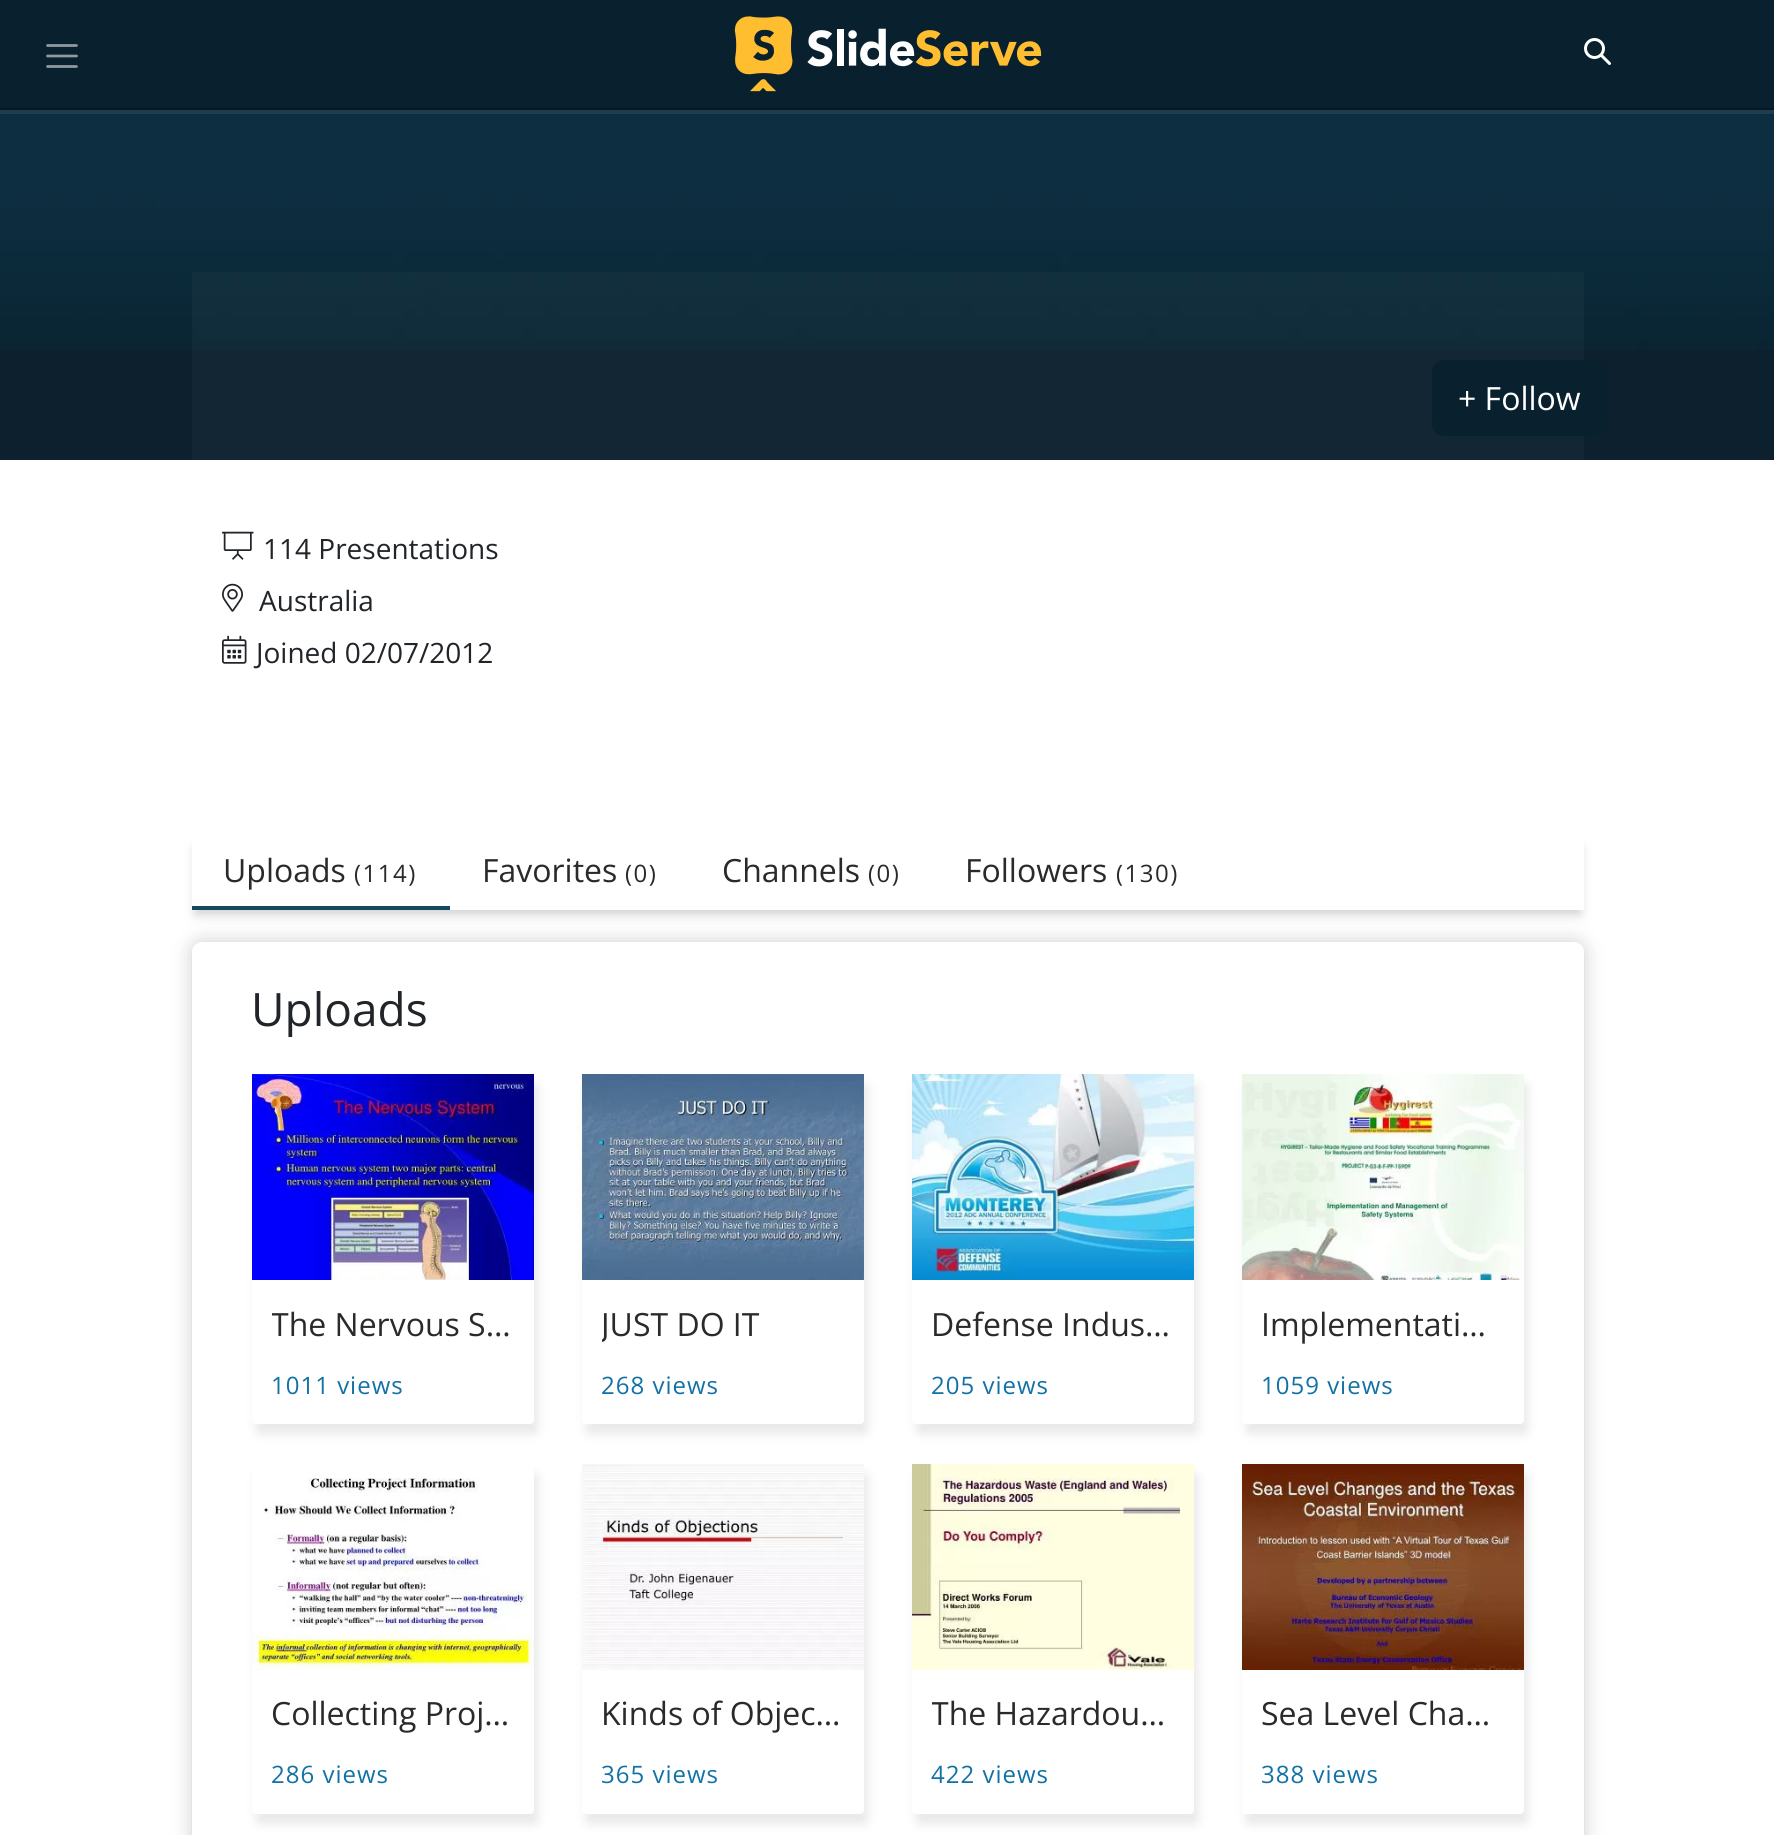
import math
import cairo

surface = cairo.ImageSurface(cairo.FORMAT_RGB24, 1774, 1835)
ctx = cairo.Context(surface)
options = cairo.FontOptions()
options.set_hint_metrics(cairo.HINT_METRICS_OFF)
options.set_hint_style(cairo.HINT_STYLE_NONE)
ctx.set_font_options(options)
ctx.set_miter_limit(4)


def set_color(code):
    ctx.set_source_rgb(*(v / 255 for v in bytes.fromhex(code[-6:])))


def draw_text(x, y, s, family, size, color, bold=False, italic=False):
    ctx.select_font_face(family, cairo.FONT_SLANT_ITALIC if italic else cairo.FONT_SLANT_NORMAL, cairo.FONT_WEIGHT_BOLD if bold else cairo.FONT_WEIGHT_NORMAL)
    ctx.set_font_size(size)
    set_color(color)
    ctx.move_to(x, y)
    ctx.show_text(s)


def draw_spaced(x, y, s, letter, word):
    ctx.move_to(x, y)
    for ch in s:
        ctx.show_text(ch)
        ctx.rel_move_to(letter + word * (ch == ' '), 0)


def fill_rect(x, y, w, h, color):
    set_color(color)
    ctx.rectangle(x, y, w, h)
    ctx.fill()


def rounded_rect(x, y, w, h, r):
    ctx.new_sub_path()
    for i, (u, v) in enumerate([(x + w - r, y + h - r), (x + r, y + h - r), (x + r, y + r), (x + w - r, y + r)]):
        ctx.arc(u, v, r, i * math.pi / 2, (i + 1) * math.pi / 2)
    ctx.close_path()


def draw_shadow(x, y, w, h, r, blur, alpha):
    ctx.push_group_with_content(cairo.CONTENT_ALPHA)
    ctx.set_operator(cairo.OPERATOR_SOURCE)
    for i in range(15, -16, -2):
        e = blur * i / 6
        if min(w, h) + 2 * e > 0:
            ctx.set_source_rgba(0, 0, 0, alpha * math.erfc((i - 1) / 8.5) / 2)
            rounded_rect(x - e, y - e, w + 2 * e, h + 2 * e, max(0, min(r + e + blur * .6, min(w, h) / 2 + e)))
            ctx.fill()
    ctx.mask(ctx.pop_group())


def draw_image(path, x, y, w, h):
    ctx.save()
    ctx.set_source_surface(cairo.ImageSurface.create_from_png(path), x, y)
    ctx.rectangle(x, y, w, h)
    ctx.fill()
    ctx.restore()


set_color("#ffffff")
ctx.paint()
fill_rect(0, 110, 1774, 4, "#1e3d4e")
fill_rect(0, 0, 1774, 108, "#09212e")
fill_rect(0, 108, 1774, 2, "#061924")
ctx.new_path()
ctx.move_to(47.5, 45.5)
ctx.line_to(76.5, 45.5)
ctx.move_to(47.5, 56)
ctx.line_to(76.5, 56)
ctx.move_to(47.5, 66.5)
ctx.line_to(76.5, 66.5)
set_color("#909ba1")
ctx.set_line_width(2.7)
ctx.set_line_cap(cairo.LINE_CAP_ROUND)
ctx.stroke()
draw_image("assets/img1.png", 734, 16, 308, 76)
ctx.arc(1594.5, 48.5, 9, 0, 2 * math.pi)
set_color("#ffffff")
ctx.set_line_width(3)
ctx.set_line_cap(cairo.LINE_CAP_BUTT)
ctx.stroke()
ctx.new_path()
ctx.move_to(1609.5, 63.5)
ctx.line_to(1601.5, 55.5)
ctx.set_line_cap(cairo.LINE_CAP_ROUND)
ctx.set_line_join(cairo.LINE_JOIN_ROUND)
ctx.stroke()
fill_rect(0, 350, 1774, 110, "#0c202e")
draw_image("assets/img2.png", 0, 114, 1774, 236)
ctx.set_source_rgba(1, 1, 1, 0.03)
ctx.rectangle(192, 272, 1392, 188)
ctx.fill()
set_color("#09212e")
rounded_rect(1432, 360, 176, 76, 12)
ctx.fill()
draw_text(1458, 410, "+ Follow", "Open Sans", 32, "#ffffff")
draw_image("assets/img3.png", 222, 531, 32, 29)
draw_text(263, 559, "114 Presentations", "Open Sans", 28, "#212529")
draw_image("assets/img4.png", 222, 583, 21, 29)
draw_text(259, 611, "Australia", "Open Sans", 28, "#212529")
draw_image("assets/img5.png", 222, 635, 25, 29)
draw_text(256, 663, "Joined 02/07/2012", "Open Sans", 28, "#212529")
ctx.save()
ctx.set_fill_rule(cairo.FILL_RULE_EVEN_ODD)
ctx.new_path()
ctx.move_to(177, 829)
ctx.line_to(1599, 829)
ctx.line_to(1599, 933)
ctx.line_to(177, 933)
ctx.close_path()
ctx.move_to(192, 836)
ctx.line_to(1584, 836)
ctx.line_to(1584, 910)
ctx.line_to(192, 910)
ctx.close_path()
ctx.clip()
set_color("#000000")
draw_shadow(196, 848, 1384, 66, 0, 6, 0.2)
ctx.restore()
fill_rect(192, 906, 258, 4, "#15495f")
draw_text(223, 882, "Uploads", "Open Sans", 32, "#2b2a2a")
ctx.set_font_size(24)
draw_spaced(354, 882, "(114)", 1.5, 0)
draw_text(482, 882, "Favorites", "Open Sans", 32, "#2b2a2a")
ctx.set_font_size(24)
draw_spaced(625, 882, "(0)", 1.5, 0)
draw_text(722, 882, "Channels", "Open Sans", 32, "#2b2a2a")
ctx.set_font_size(24)
draw_spaced(868, 882, "(0)", 1.5, 0)
draw_text(965, 882, "Followers", "Open Sans", 32, "#2b2a2a")
ctx.set_font_size(24)
draw_spaced(1116, 882, "(130)", 1.5, 0)
set_color("#000000")
draw_shadow(192, 942, 1392, 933, 10, 10, 0.2)
set_color("#ffffff")
rounded_rect(192, 942, 1392, 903, 10)
ctx.fill()
draw_text(251, 1026, "Uploads", "Open Sans", 46, "#212529")
set_color("#c7c7c7")
draw_shadow(256, 1084, 282, 350, 4, 5, 0.4)
set_color("#ffffff")
rounded_rect(252, 1074, 282, 350, 4)
ctx.fill()
draw_image("assets/img6.png", 252, 1074, 282, 206)
ctx.save()
ctx.rectangle(272, 1300, 242, 48)
ctx.clip()
draw_text(271, 1336, "The Nervous S…", "Open Sans", 32, "#2b2a2a")
ctx.restore()
ctx.set_font_size(24)
set_color("#1271a5")
draw_spaced(271, 1394, "1011 views", 1, 0)
set_color("#c7c7c7")
draw_shadow(586, 1084, 282, 350, 4, 5, 0.4)
set_color("#ffffff")
rounded_rect(582, 1074, 282, 350, 4)
ctx.fill()
draw_image("assets/img7.png", 582, 1074, 282, 206)
ctx.save()
ctx.rectangle(602, 1300, 242, 48)
ctx.clip()
draw_text(601, 1336, "JUST DO IT", "Open Sans", 32, "#2b2a2a")
ctx.restore()
set_color("#1271a5")
draw_spaced(601, 1394, "268 views", 1, 0)
set_color("#c7c7c7")
draw_shadow(916, 1084, 282, 350, 4, 5, 0.4)
set_color("#ffffff")
rounded_rect(912, 1074, 282, 350, 4)
ctx.fill()
draw_image("assets/img8.png", 912, 1074, 282, 206)
draw_text(931, 1336, "Defense Indus…", "Open Sans", 32, "#2b2a2a")
ctx.set_font_size(24)
set_color("#1271a5")
draw_spaced(931, 1394, "205 views", 1, 0)
set_color("#c7c7c7")
draw_shadow(1246, 1084, 282, 350, 4, 5, 0.4)
set_color("#ffffff")
rounded_rect(1242, 1074, 282, 350, 4)
ctx.fill()
draw_image("assets/img9.png", 1242, 1074, 282, 206)
draw_text(1261, 1336, "Implementati…", "Open Sans", 32, "#2b2a2a")
ctx.set_font_size(24)
set_color("#1271a5")
draw_spaced(1261, 1394, "1059 views", 1, 0)
set_color("#c7c7c7")
draw_shadow(256, 1474, 282, 350, 4, 5, 0.4)
set_color("#ffffff")
rounded_rect(252, 1464, 282, 350, 4)
ctx.fill()
draw_image("assets/img10.png", 252, 1478, 282, 192)
draw_text(271, 1725, "Collecting Proj…", "Open Sans", 32, "#2b2a2a")
ctx.set_font_size(24)
set_color("#1271a5")
draw_spaced(271, 1783, "286 views", 1, 0)
set_color("#c7c7c7")
draw_shadow(586, 1474, 282, 350, 4, 5, 0.4)
set_color("#ffffff")
rounded_rect(582, 1464, 282, 350, 4)
ctx.fill()
draw_image("assets/img11.png", 582, 1464, 282, 206)
draw_text(601, 1725, "Kinds of Objec…", "Open Sans", 32, "#2b2a2a")
ctx.set_font_size(24)
set_color("#1271a5")
draw_spaced(601, 1783, "365 views", 1, 0)
set_color("#c7c7c7")
draw_shadow(916, 1474, 282, 350, 4, 5, 0.4)
set_color("#ffffff")
rounded_rect(912, 1464, 282, 350, 4)
ctx.fill()
draw_image("assets/img12.png", 912, 1464, 282, 206)
ctx.save()
ctx.rectangle(932, 1690, 242, 48)
ctx.clip()
draw_text(931, 1725, "The Hazardou…", "Open Sans", 32, "#2b2a2a")
ctx.restore()
set_color("#1271a5")
draw_spaced(931, 1783, "422 views", 1, 0)
set_color("#c7c7c7")
draw_shadow(1246, 1474, 282, 350, 4, 5, 0.4)
set_color("#ffffff")
rounded_rect(1242, 1464, 282, 350, 4)
ctx.fill()
draw_image("assets/img13.png", 1242, 1464, 282, 206)
draw_text(1261, 1725, "Sea Level Cha…", "Open Sans", 32, "#2b2a2a")
ctx.set_font_size(24)
set_color("#1271a5")
draw_spaced(1261, 1783, "388 views", 1, 0)
surface.write_to_png("output.png")
